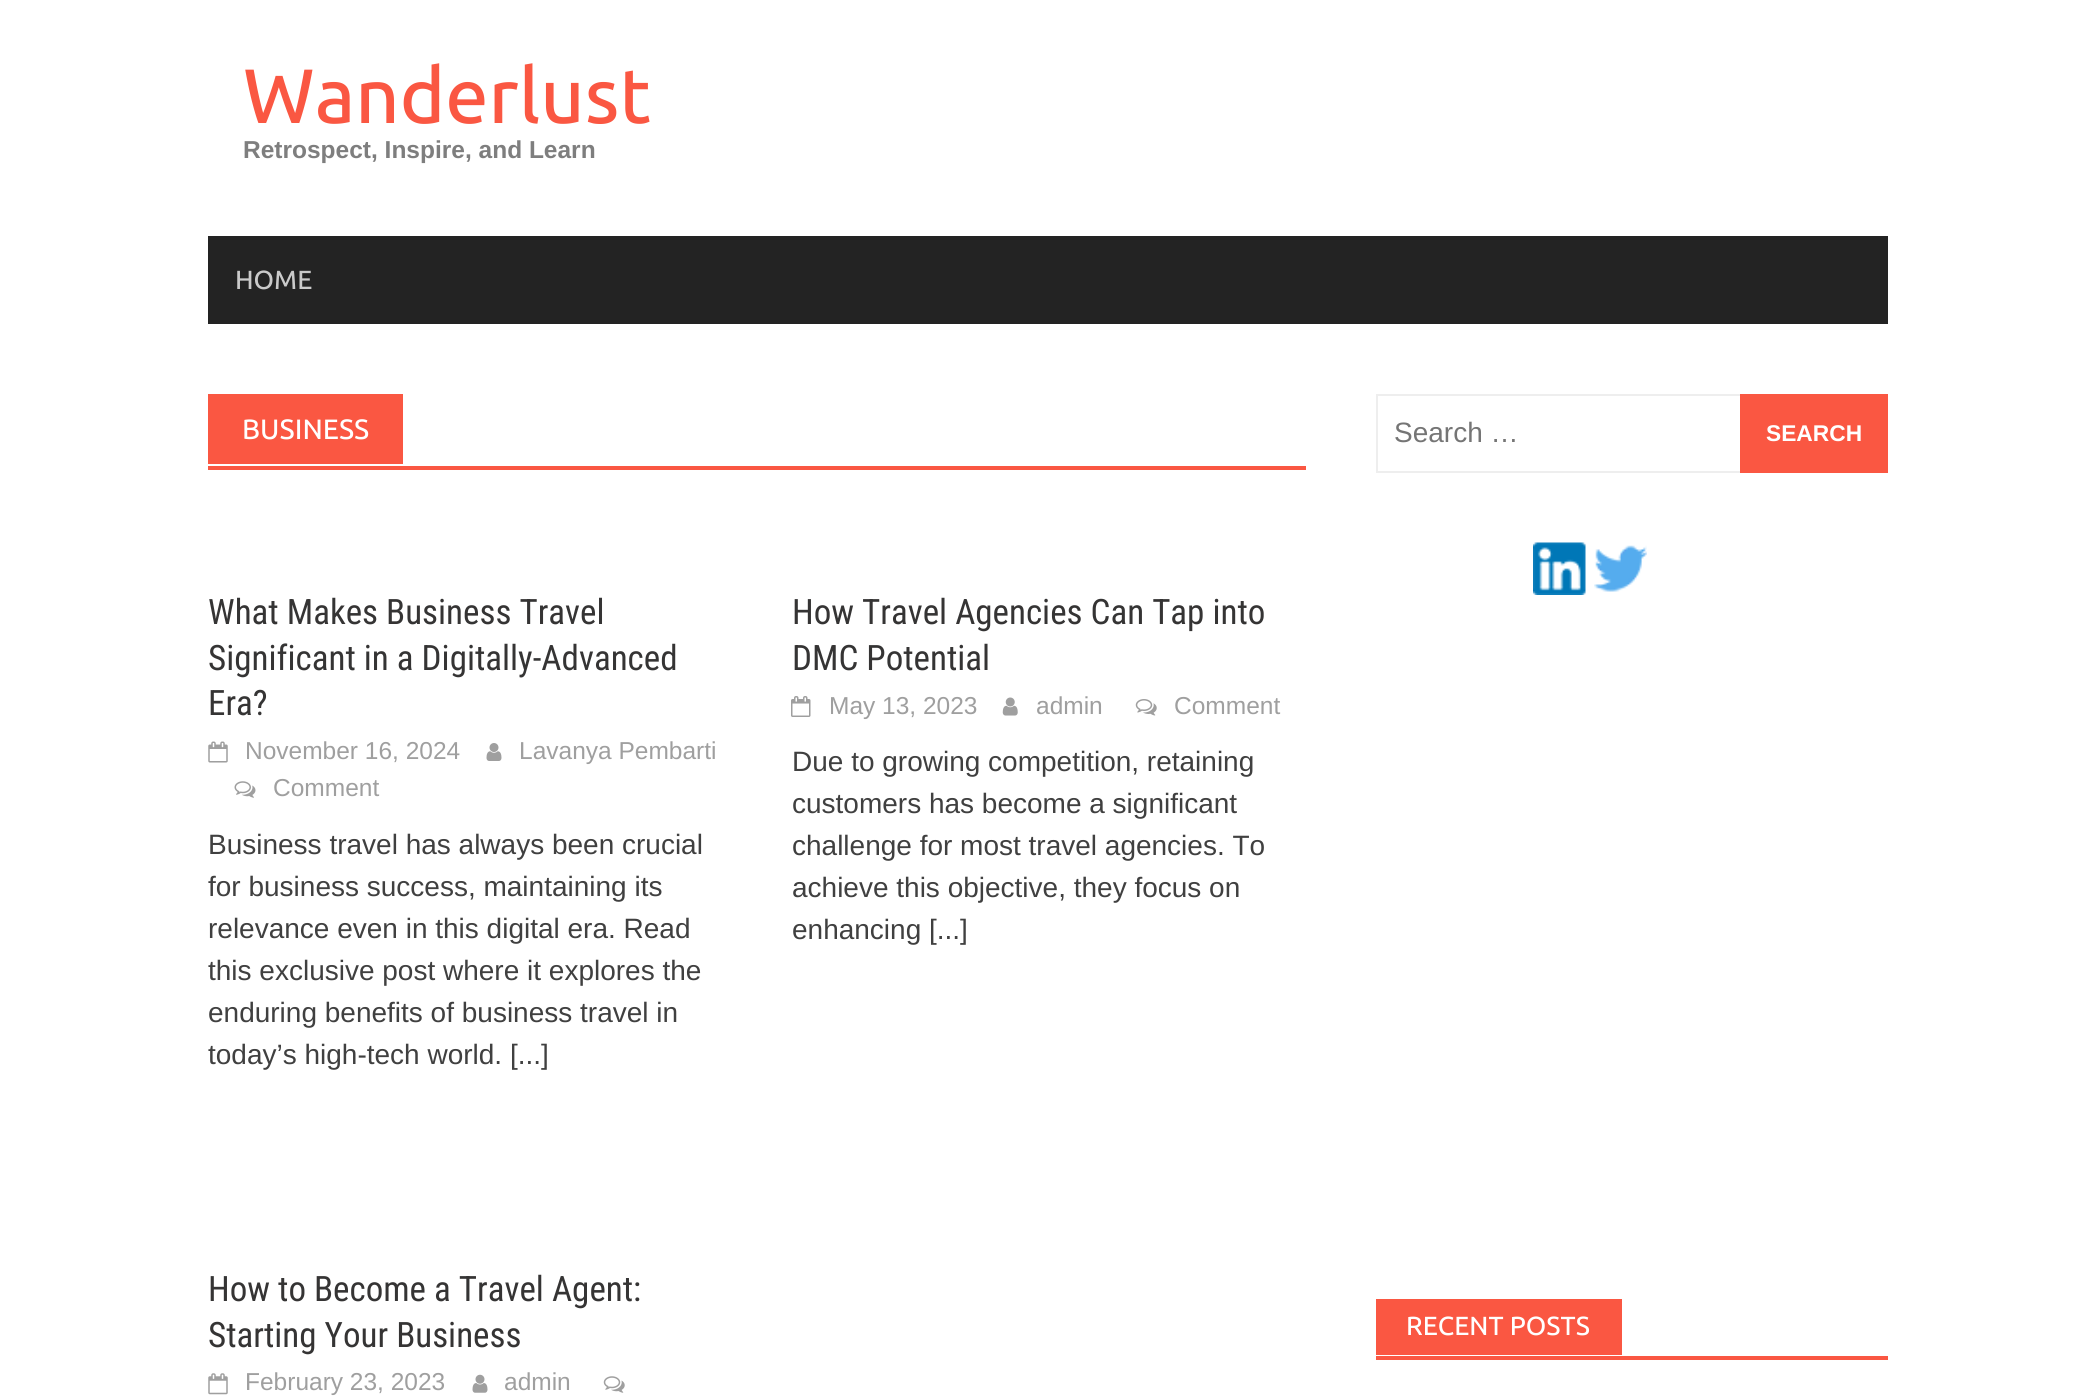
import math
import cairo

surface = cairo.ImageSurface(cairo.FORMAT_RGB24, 2095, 1399)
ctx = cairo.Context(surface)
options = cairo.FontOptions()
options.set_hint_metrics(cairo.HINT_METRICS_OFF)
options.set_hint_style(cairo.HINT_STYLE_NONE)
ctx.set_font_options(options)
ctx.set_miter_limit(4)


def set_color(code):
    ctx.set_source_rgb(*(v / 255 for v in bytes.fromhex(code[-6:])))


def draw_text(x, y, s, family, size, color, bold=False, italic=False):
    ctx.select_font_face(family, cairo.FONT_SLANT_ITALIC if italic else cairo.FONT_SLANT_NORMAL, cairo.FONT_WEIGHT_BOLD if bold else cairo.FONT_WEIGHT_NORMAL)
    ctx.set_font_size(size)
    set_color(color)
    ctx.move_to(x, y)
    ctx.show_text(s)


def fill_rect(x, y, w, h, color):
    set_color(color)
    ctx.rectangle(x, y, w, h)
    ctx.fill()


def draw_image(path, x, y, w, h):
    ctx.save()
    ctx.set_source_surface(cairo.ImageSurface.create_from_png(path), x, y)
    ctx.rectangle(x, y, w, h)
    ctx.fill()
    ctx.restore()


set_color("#ffffff")
ctx.paint()
draw_text(243, 123, "Wanderlust", "Ubuntu Medium", 77, "#fa5742")
draw_text(243, 158, "Retrospect, Inspire, and Learn", "Liberation Sans", 24.5, "#7e7e7e", bold=True)
fill_rect(208, 236, 1680, 88, "#232323")
draw_text(235, 289, "HOME", "Ubuntu Medium", 26.25, "#cacaca")
fill_rect(208, 466, 1098, 4, "#fa5742")
fill_rect(208, 394, 195, 70, "#fa5742")
draw_text(242, 439, "BUSINESS", "Ubuntu Medium", 28, "#ffffff")
draw_text(208, 624, "What Makes Business Travel", "Roboto Condensed", 35, "#353434")
draw_text(208, 670, "Significant in a Digitally-Advanced", "Roboto Condensed", 35, "#353434")
draw_text(208, 715, "Era?", "Roboto Condensed", 35, "#353434")
draw_image("assets/img1.png", 208, 741, 20, 22)
draw_text(245, 759, "November 16, 2024", "Liberation Sans", 24.5, "#9f9f9f")
draw_image("assets/img2.png", 486, 743, 16, 18)
draw_text(519, 759, "Lavanya Pembarti", "Liberation Sans", 24.5, "#9f9f9f")
draw_image("assets/img3.png", 234, 781, 22, 17)
draw_text(273, 796, "Comment", "Liberation Sans", 24.5, "#9f9f9f")
draw_text(208, 854, "Business travel has always been crucial", "Liberation Sans", 28, "#404040")
draw_text(208, 896, "for business success, maintaining its", "Liberation Sans", 28, "#404040")
draw_text(208, 938, "relevance even in this digital era. Read", "Liberation Sans", 28, "#404040")
draw_text(208, 980, "this exclusive post where it explores the", "Liberation Sans", 28, "#404040")
draw_text(208, 1022, "enduring benefits of business travel in", "Liberation Sans", 28, "#404040")
draw_text(208, 1064, "today’s high-tech world. [...]", "Liberation Sans", 28, "#404040")
draw_text(792, 624, "How Travel Agencies Can Tap into", "Roboto Condensed", 35, "#353434")
draw_text(792, 670, "DMC Potential", "Roboto Condensed", 35, "#353434")
draw_image("assets/img4.png", 791, 696, 20, 21)
draw_text(829, 714, "May 13, 2023", "Liberation Sans", 24.5, "#9f9f9f")
draw_image("assets/img5.png", 1002, 697, 16, 19)
draw_text(1036, 714, "admin", "Liberation Sans", 24.5, "#9f9f9f")
draw_image("assets/img6.png", 1135, 699, 22, 17)
draw_text(1174, 714, "Comment", "Liberation Sans", 24.5, "#9f9f9f")
draw_text(792, 771, "Due to growing competition, retaining", "Liberation Sans", 28, "#404040")
draw_text(792, 813, "customers has become a significant", "Liberation Sans", 28, "#404040")
draw_text(792, 855, "challenge for most travel agencies. To", "Liberation Sans", 28, "#404040")
draw_text(792, 897, "achieve this objective, they focus on", "Liberation Sans", 28, "#404040")
draw_text(792, 939, "enhancing [...]", "Liberation Sans", 28, "#404040")
draw_text(208, 1301, "How to Become a Travel Agent:", "Roboto Condensed", 35, "#353434")
draw_text(208, 1347, "Starting Your Business", "Roboto Condensed", 35, "#353434")
draw_image("assets/img7.png", 208, 1373, 20, 22)
draw_text(245, 1390, "February 23, 2023", "Liberation Sans", 24.5, "#9f9f9f")
draw_image("assets/img8.png", 472, 1374, 16, 19)
draw_text(504, 1390, "admin", "Liberation Sans", 24.5, "#9f9f9f")
draw_image("assets/img9.png", 603, 1376, 22, 17)
ctx.rectangle(1377, 395, 510, 77)
set_color("#eeeeee")
ctx.stroke()
draw_text(1394, 442, "Search …", "Liberation Sans", 28, "#757575")
fill_rect(1740, 394, 148, 79, "#fa5742")
draw_text(1766, 441, "SEARCH", "Liberation Sans", 22.75, "#ffffff", bold=True)
draw_image("assets/img10.png", 1533, 542, 53, 53)
draw_image("assets/img11.png", 1594, 545, 53, 47)
fill_rect(1376, 1356, 512, 4, "#fa5742")
fill_rect(1376, 1299, 246, 56, "#fa5742")
draw_text(1406, 1335, "RECENT POSTS", "Ubuntu Medium", 26.25, "#ffffff")
surface.write_to_png("output.png")
